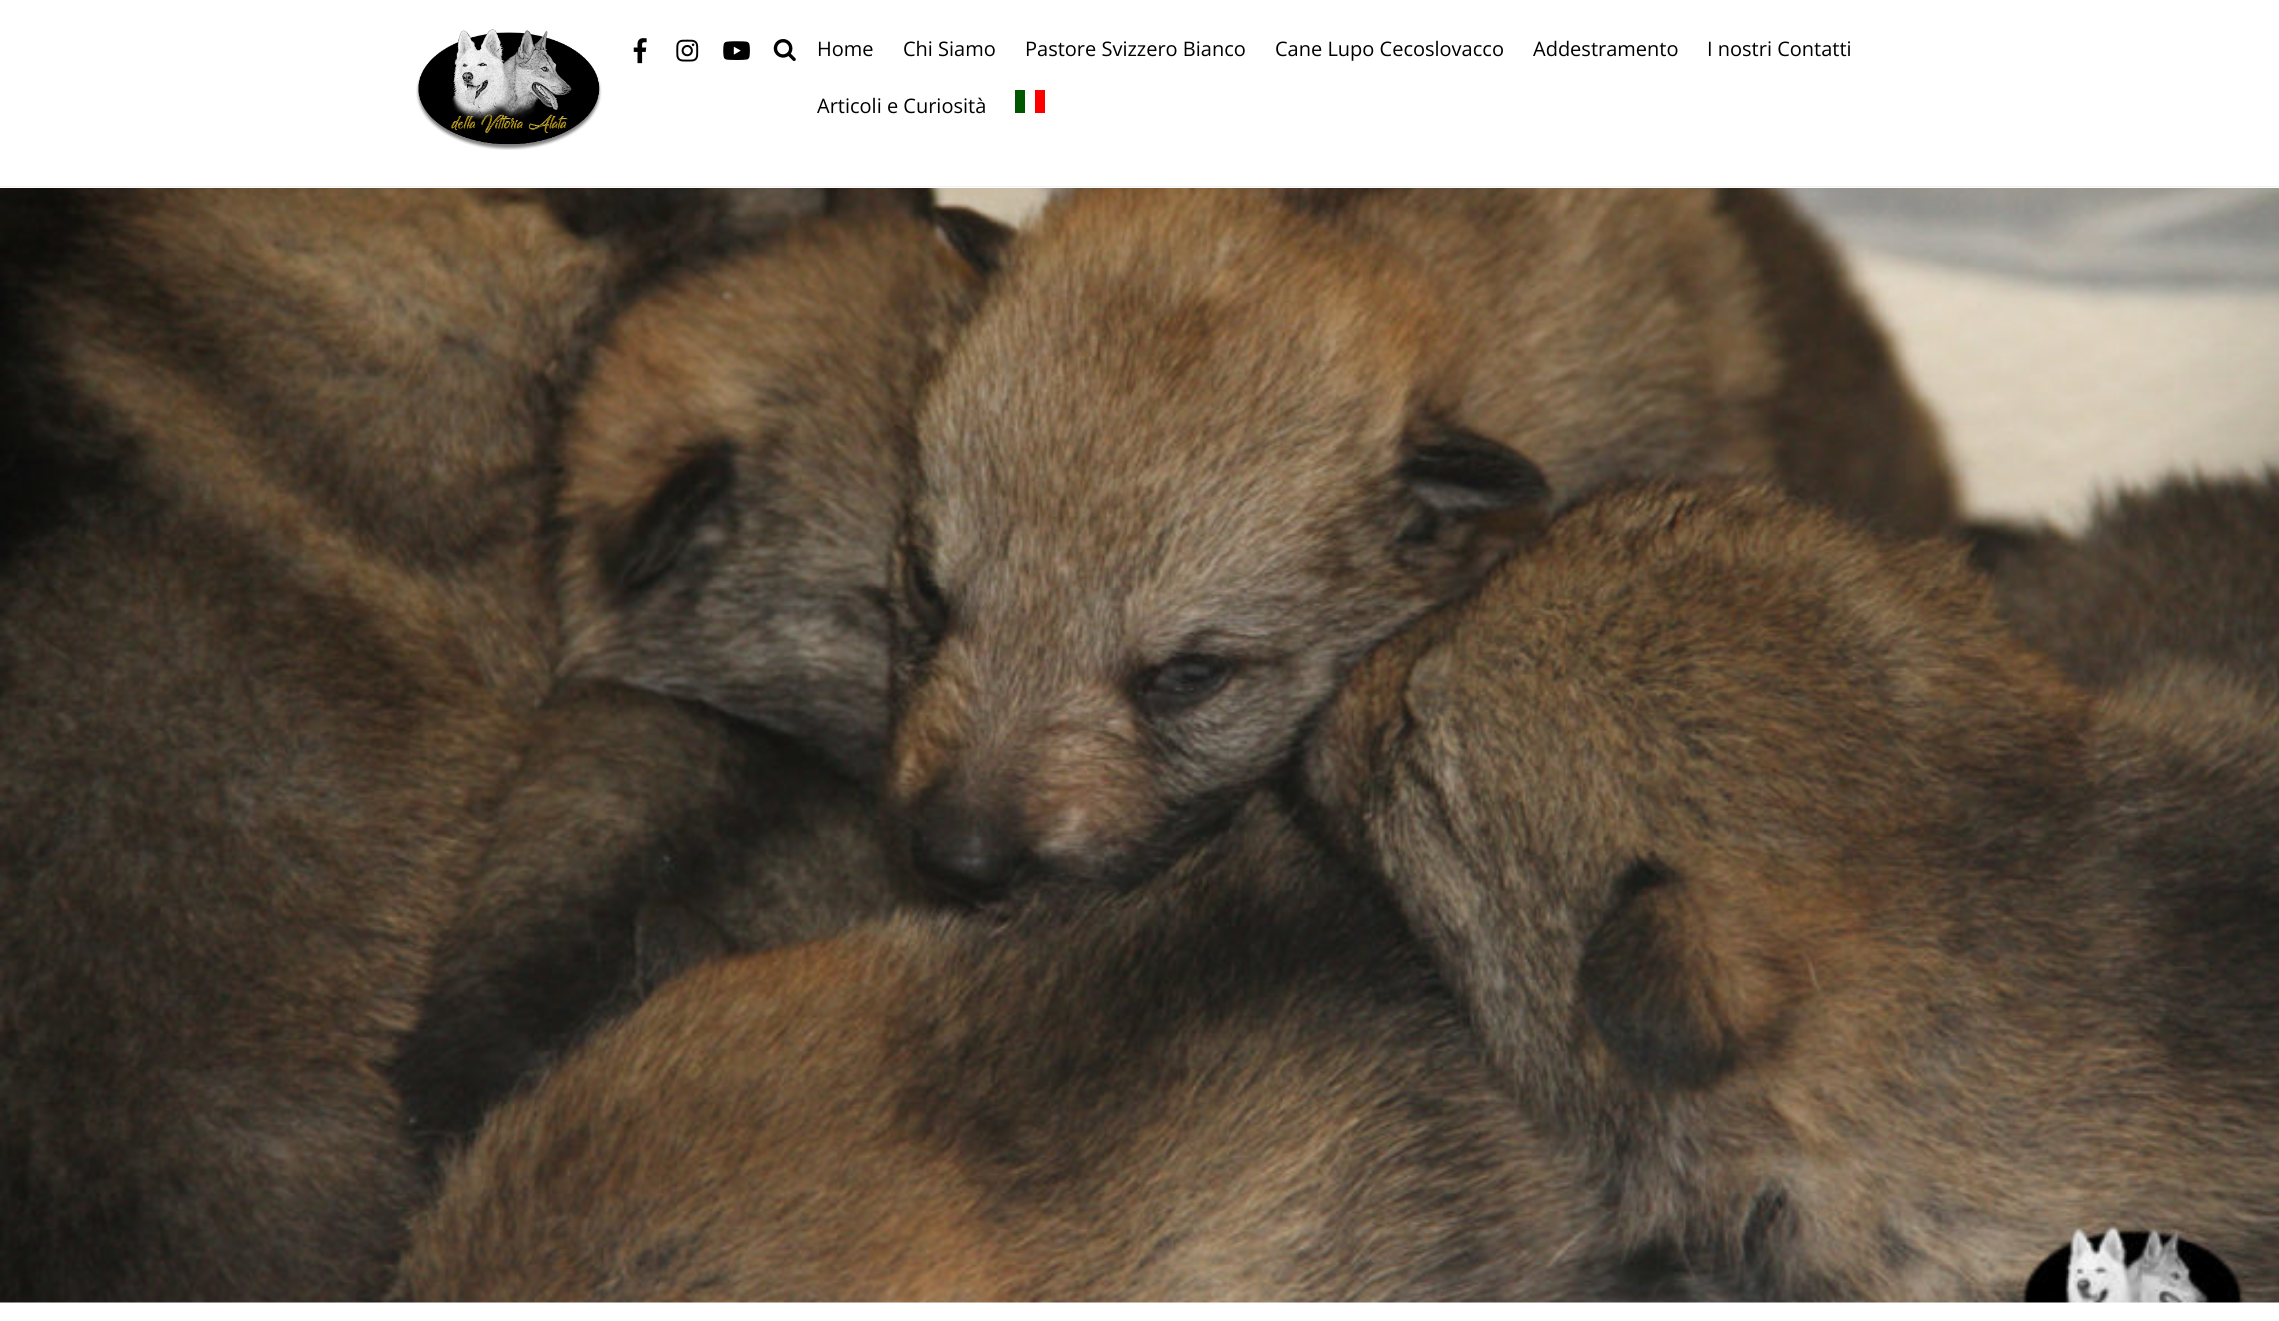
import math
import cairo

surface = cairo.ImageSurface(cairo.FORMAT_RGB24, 2279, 1321)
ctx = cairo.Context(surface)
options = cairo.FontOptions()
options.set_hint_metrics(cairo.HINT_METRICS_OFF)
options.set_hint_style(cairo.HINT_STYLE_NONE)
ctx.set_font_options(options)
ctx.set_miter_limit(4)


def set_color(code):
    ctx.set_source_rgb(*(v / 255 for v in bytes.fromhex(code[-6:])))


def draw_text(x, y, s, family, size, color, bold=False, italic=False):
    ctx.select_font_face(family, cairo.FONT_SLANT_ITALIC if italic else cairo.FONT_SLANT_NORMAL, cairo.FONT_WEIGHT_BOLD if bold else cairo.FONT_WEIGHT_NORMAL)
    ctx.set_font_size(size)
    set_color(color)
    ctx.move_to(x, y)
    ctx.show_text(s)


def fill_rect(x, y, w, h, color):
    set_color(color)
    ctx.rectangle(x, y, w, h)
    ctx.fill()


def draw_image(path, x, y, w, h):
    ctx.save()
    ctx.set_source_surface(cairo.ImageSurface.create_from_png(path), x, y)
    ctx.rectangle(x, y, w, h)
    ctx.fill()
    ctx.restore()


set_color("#ffffff")
ctx.paint()
fill_rect(0, 186, 2279, 1, "#f2f2f2")
draw_image("assets/img1.png", 416, 29, 186, 121)
draw_image("assets/img2.png", 633, 38, 14, 26)
draw_image("assets/img3.png", 676, 39, 23, 23)
draw_image("assets/img4.png", 723, 41, 27, 19)
draw_image("assets/img5.png", 773, 39, 23, 22)
draw_text(817, 56, "Home", "Open Sans", 20, "#000000")
draw_text(903, 56, "Chi Siamo", "Open Sans", 20, "#000000")
draw_text(1025, 56, "Pastore Svizzero Bianco", "Open Sans", 20, "#000000")
draw_text(1275, 56, "Cane Lupo Cecoslovacco", "Open Sans", 20, "#000000")
draw_text(1533, 56, "Addestramento", "Open Sans", 20, "#000000")
draw_text(1707, 56, "I nostri Contatti", "Open Sans", 20, "#000000")
draw_text(817, 113, "Articoli e Curiosità", "Open Sans", 20, "#000000")
fill_rect(1015, 90, 10, 23, "#005700")
fill_rect(1035, 90, 10, 23, "#fc0000")
draw_image("assets/img6.png", 0, 188, 2279, 1115)
surface.write_to_png("output.png")
